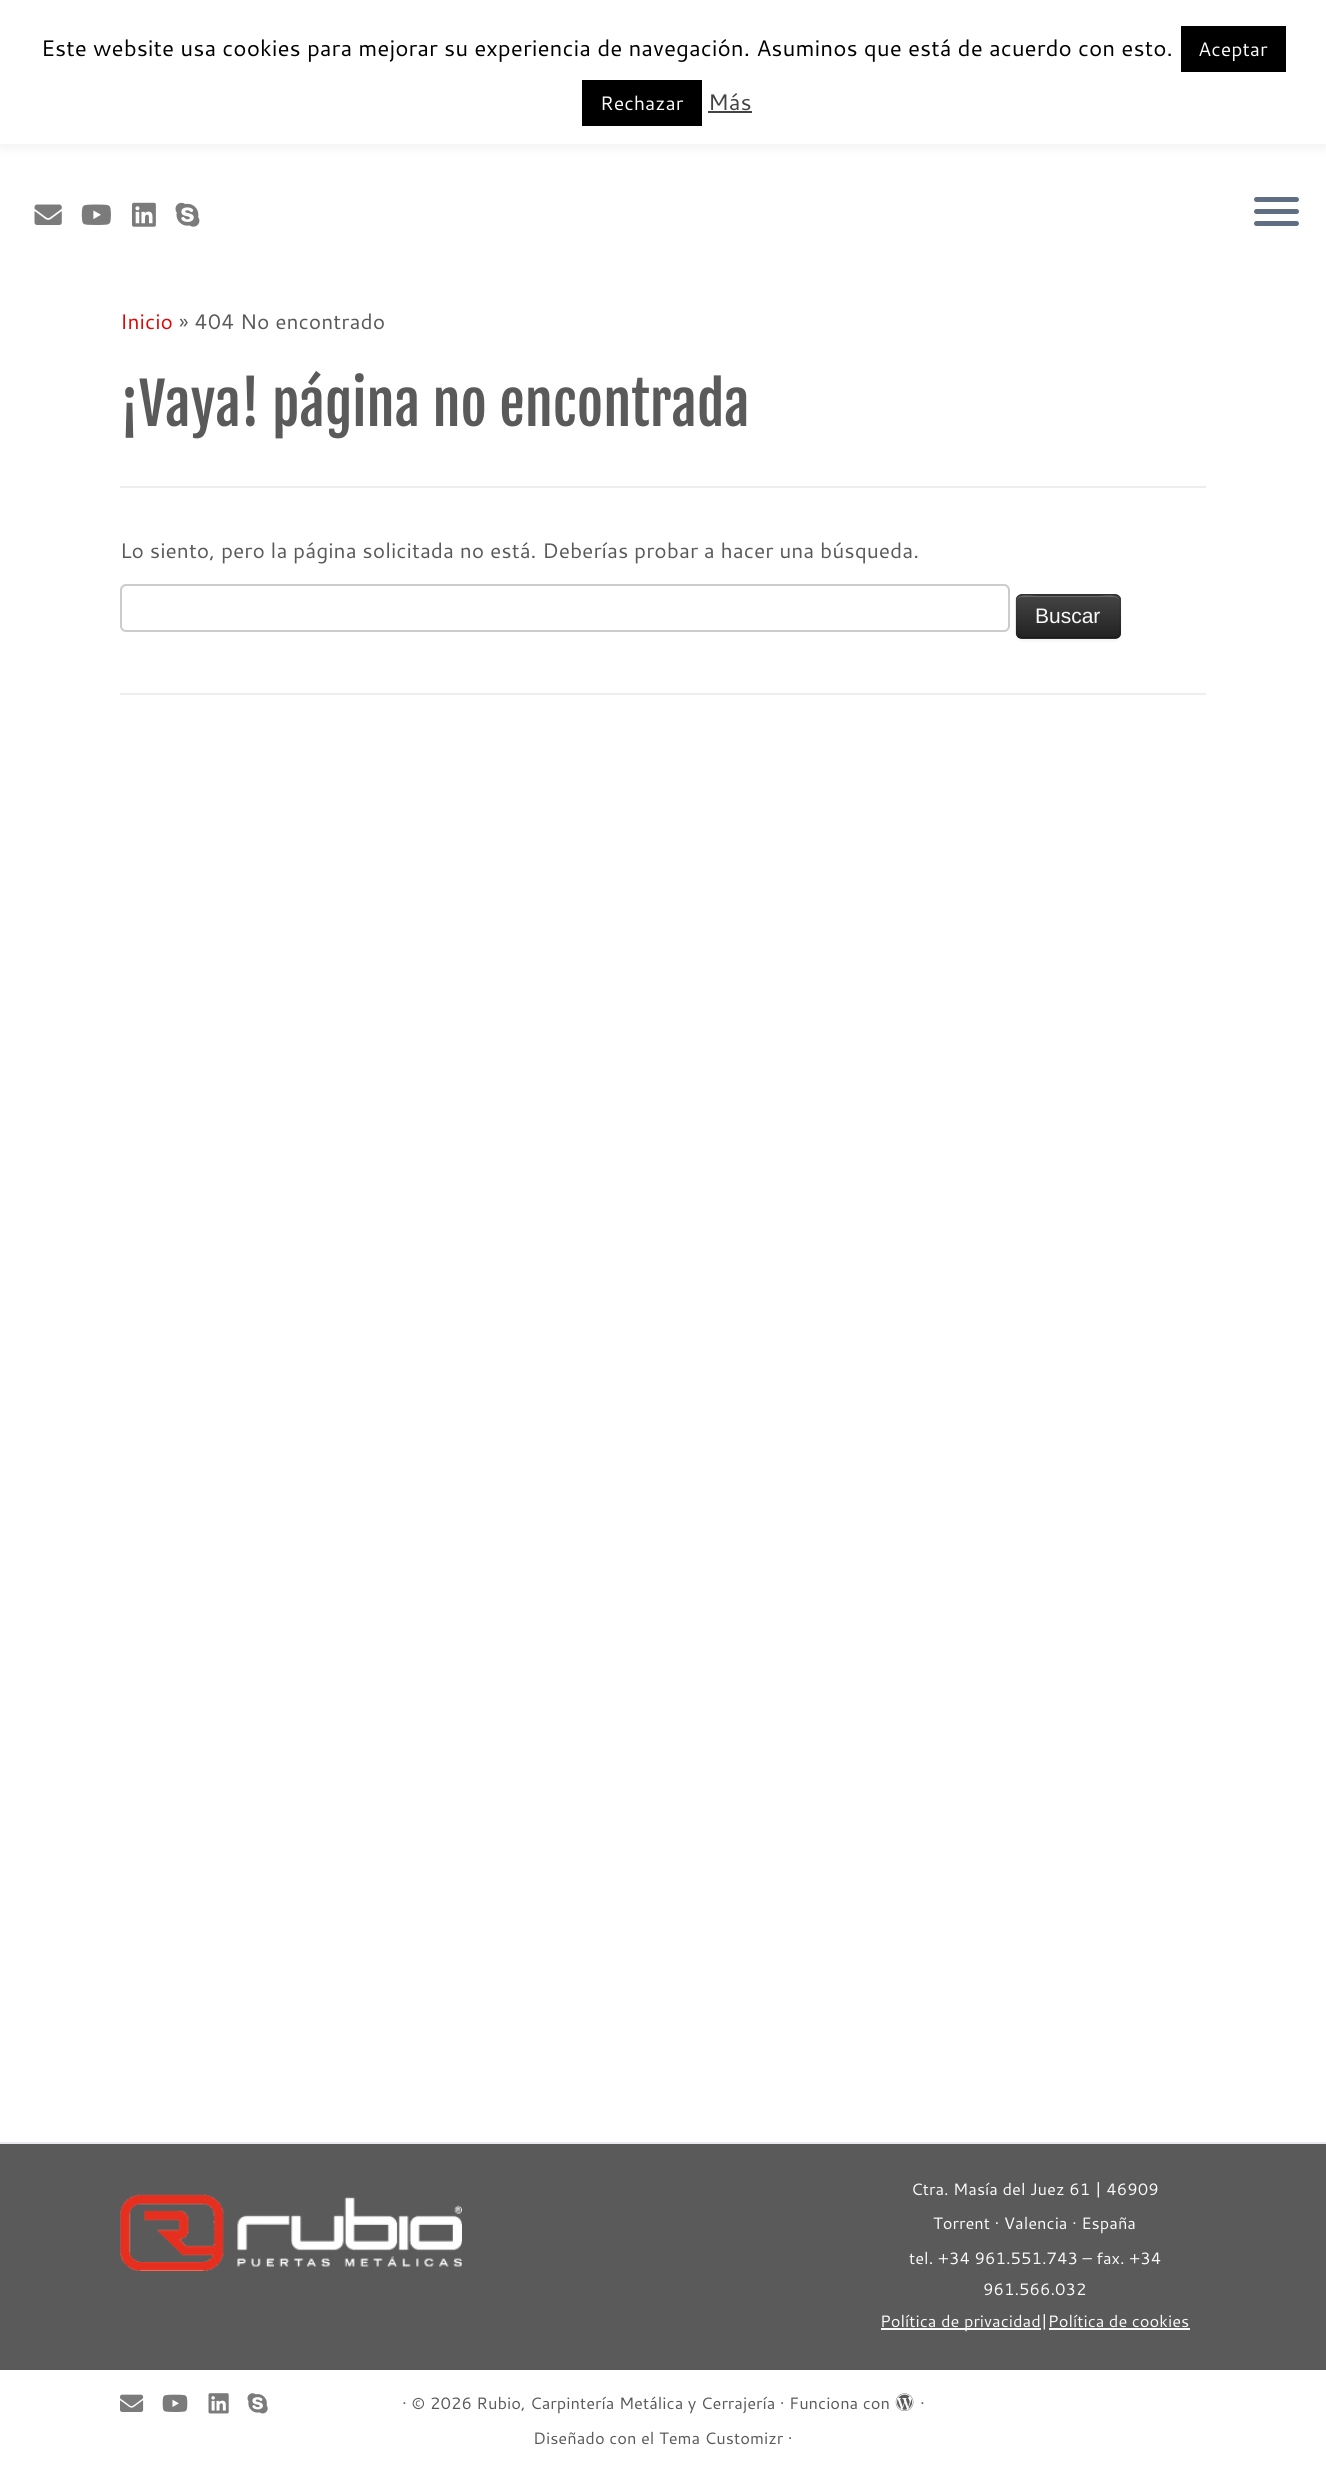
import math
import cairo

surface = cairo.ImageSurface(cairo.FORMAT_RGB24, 1326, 2474)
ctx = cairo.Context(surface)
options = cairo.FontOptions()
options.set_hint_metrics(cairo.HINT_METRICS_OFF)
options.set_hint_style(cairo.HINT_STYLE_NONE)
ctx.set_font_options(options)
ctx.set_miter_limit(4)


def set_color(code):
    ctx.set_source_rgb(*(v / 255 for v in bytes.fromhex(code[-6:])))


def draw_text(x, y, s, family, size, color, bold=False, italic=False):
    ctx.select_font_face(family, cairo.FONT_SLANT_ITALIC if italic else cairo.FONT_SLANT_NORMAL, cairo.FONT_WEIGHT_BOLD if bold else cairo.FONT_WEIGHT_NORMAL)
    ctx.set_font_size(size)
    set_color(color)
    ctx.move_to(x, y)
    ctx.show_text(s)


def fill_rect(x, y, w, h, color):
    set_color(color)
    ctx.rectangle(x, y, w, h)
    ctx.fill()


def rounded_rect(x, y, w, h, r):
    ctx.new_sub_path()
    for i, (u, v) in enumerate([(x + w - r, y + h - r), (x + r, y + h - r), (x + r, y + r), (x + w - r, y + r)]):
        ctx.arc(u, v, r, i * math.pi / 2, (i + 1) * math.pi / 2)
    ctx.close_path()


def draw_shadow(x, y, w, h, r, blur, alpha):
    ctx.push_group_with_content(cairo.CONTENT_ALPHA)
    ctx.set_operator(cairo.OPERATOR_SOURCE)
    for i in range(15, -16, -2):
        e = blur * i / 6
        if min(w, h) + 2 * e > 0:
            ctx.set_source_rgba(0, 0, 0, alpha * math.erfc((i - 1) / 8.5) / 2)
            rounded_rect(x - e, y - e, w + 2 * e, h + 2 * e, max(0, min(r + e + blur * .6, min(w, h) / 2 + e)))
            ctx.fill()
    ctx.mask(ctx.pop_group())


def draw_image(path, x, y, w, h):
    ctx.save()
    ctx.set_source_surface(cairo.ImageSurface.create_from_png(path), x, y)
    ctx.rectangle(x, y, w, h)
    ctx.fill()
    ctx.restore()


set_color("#ffffff")
ctx.paint()
set_color("#acabab")
draw_shadow(0, -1, 1326, 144, 0, 7.5, 0.3)
fill_rect(0, 0, 1326, 144, "#ffffff")
draw_text(41, 56, "Este website usa cookies para mejorar su experiencia de navegación. Asuminos que está de acuerdo con esto.", "Cantarell", 22.5, "#000000")
fill_rect(1181, 26, 105, 46, "#000000")
draw_text(1198, 56, "Aceptar", "Cantarell", 19.5, "#fafafa")
fill_rect(582, 80, 120, 46, "#000000")
draw_text(600, 110, "Rechazar", "Cantarell", 19.5, "#fafafa")
draw_text(708, 110, "Más", "Cantarell", 22.5, "#444444")
fill_rect(708, 111, 44, 2, "#444444")
draw_image("assets/img1.png", 34, 204, 28, 21)
draw_image("assets/img2.png", 81, 204, 30, 21)
draw_image("assets/img3.png", 132, 202, 24, 25)
draw_image("assets/img4.png", 175, 202, 25, 25)
set_color("#5f6f81")
rounded_rect(1254, 197, 45, 5, 2.5)
ctx.fill()
rounded_rect(1254, 209, 45, 5, 2.5)
ctx.fill()
rounded_rect(1254, 221, 45, 5, 2.5)
ctx.fill()
draw_text(120, 329, "Inicio", "Cantarell", 21, "#e10707")
draw_text(179, 329, "» 404 No encontrado", "Cantarell", 21, "#5a5a5a")
draw_text(120, 426, "¡Vaya! página no encontrada", "Fjalla One", 57, "#5a5a5a")
fill_rect(120, 486, 1086, 2, "#eeeeee")
draw_text(120, 558, "Lo siento, pero la página solicitada no está. Deberías probar a hacer una búsqueda.", "Cantarell", 21, "#5a5a5a")
set_color("#ececec")
ctx.new_path()
ctx.move_to(126, 586)
ctx.line_to(1004, 586)
ctx.curve_to(1006, 586, 1008, 589, 1008, 591)
ctx.line_to(1008, 590)
ctx.curve_to(1008, 587, 1006, 585, 1003, 585)
ctx.line_to(127, 585)
ctx.curve_to(124, 585, 122, 587, 122, 590)
ctx.line_to(122, 591)
ctx.curve_to(122, 589, 124, 586, 126, 586)
ctx.close_path()
ctx.fill()
rounded_rect(121, 585, 888, 46, 5)
set_color("#cccccc")
ctx.stroke()
set_color("#000000")
draw_shadow(1016, 596, 105, 45, 6, 1.5, 0.05)
set_color("#363636")
rounded_rect(1016, 594, 105, 45, 6)
ctx.fill()
ctx.save()
rounded_rect(1016, 594, 105, 45, 6)
ctx.clip()
gradient = cairo.LinearGradient(1068, 596, 1068, 638)
gradient.add_color_stop_rgba(0, 0.267, 0.267, 0.267, 1)
gradient.add_color_stop_rgba(1, 0.133, 0.133, 0.133, 1)
ctx.set_source(gradient)
ctx.rectangle(1016, 596, 105, 42)
ctx.fill()
ctx.restore()
ctx.set_source_rgba(1, 1, 1, 0.2)
ctx.new_path()
ctx.move_to(1022, 597)
ctx.line_to(1114, 597)
ctx.curve_to(1117, 597, 1119, 599, 1119, 602)
ctx.curve_to(1119, 592, 1104, 596, 1099, 596)
ctx.line_to(1037, 596)
ctx.curve_to(1032, 596, 1017, 592, 1017, 602)
ctx.curve_to(1017, 599, 1019, 597, 1022, 597)
ctx.close_path()
ctx.fill()
ctx.new_path()
ctx.move_to(1118, 636.5)
ctx.line_to(1115, 638)
ctx.line_to(1021, 638)
ctx.line_to(1018, 636.5)
ctx.set_source_rgba(0, 0, 0, 0.25)
ctx.set_line_width(1.5)
ctx.stroke()
ctx.new_path()
ctx.move_to(1018, 636.5)
ctx.curve_to(1015.5, 634.5, 1016, 630.5, 1016, 627.5)
ctx.line_to(1016, 616.5)
ctx.curve_to(1016, 592.5, 1012.5, 595, 1037, 595)
ctx.line_to(1099, 595)
ctx.curve_to(1123.5, 595, 1120, 592.5, 1120, 616.5)
ctx.line_to(1120, 627.5)
ctx.curve_to(1120, 630.5, 1120.5, 634.5, 1118, 636.5)
ctx.set_source_rgba(0, 0, 0, 0.1)
ctx.stroke()
draw_text(1035, 623, "Buscar", "Liberation Sans", 21, "#fafafa")
fill_rect(120, 693, 1086, 2, "#eeeeee")
fill_rect(0, 2144, 1326, 226, "#5a5a5a")
fill_rect(0, 2142, 1326, 2, "#e9eaee")
draw_image("assets/img5.png", 120, 2194, 342, 77)
draw_text(911, 2195, "Ctra. Masía del Juez 61 | 46909", "Cantarell", 16.5, "#fafafa")
draw_text(933, 2229, "Torrent · Valencia · España", "Cantarell", 16.5, "#fafafa")
draw_text(909, 2264, "tel. +34 961.551.743 – fax. +34", "Cantarell", 16.5, "#fafafa")
draw_text(983, 2295, "961.566.032", "Cantarell", 16.5, "#fafafa")
fill_rect(881, 2328, 160, 2, "#fafafa")
draw_text(880, 2327, "Política de privacidad|Política de cookies", "Cantarell", 16.5, "#fafafa")
fill_rect(1049, 2328, 141, 2, "#fafafa")
draw_image("assets/img6.png", 120, 2394, 24, 18)
draw_image("assets/img7.png", 162, 2394, 26, 18)
draw_image("assets/img8.png", 208, 2393, 21, 21)
draw_image("assets/img9.png", 247, 2393, 21, 21)
draw_text(402, 2409, "· © 2026 Rubio, Carpintería Metálica y Cerrajería · Funciona con", "Cantarell", 16.5, "#5a5a5a")
draw_image("assets/img10.png", 895, 2393, 19, 18)
draw_text(920, 2409, "·", "Cantarell", 16.5, "#5a5a5a")
draw_text(533, 2444, "Diseñado con el Tema Customizr ·", "Cantarell", 16.5, "#5a5a5a")
surface.write_to_png("output.png")
